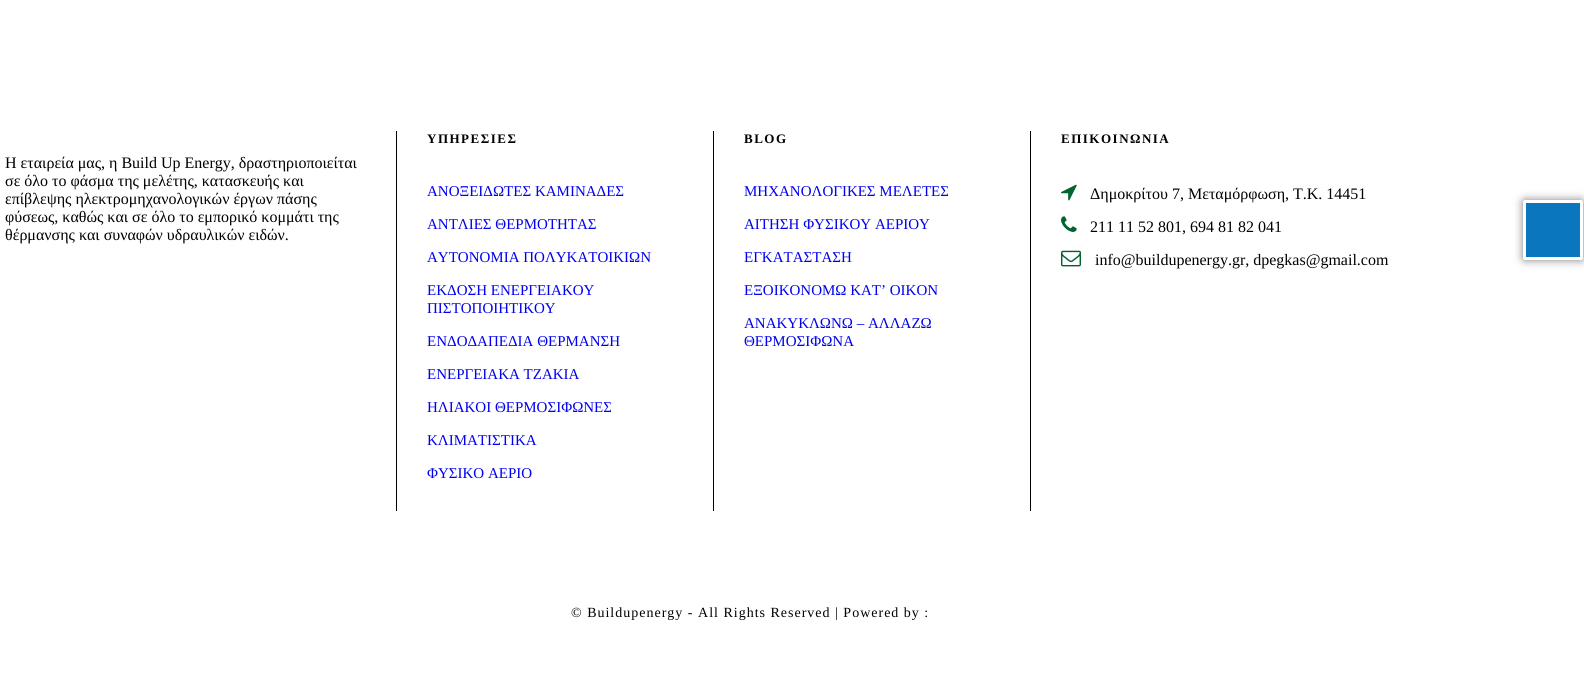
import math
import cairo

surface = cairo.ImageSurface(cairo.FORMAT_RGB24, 1584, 679)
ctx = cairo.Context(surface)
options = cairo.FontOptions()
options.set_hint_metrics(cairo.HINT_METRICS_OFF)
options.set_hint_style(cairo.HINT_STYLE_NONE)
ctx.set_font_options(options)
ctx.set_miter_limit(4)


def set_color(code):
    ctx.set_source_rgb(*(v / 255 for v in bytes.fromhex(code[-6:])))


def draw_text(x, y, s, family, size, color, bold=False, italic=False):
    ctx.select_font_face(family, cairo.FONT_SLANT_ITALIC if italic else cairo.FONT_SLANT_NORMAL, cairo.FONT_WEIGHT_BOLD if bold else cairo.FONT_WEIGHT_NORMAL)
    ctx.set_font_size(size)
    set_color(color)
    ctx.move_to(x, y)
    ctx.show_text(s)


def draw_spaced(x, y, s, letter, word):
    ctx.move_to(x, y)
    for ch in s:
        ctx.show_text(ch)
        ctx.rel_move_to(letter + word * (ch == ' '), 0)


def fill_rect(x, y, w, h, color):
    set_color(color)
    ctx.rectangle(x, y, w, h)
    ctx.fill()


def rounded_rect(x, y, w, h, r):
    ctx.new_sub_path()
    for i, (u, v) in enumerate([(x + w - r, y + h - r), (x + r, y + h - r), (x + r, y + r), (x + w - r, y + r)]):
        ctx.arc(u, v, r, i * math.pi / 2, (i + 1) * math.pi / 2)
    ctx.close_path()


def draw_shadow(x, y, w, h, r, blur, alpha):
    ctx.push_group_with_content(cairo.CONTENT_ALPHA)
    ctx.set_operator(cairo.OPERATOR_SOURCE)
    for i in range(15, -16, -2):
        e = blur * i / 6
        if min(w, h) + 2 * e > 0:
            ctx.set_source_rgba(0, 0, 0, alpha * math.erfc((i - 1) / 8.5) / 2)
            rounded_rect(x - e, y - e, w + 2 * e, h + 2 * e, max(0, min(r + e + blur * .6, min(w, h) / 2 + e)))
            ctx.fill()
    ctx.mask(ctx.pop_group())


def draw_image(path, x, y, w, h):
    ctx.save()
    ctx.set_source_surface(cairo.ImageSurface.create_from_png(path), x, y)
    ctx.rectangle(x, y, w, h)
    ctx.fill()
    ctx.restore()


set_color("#ffffff")
ctx.paint()
draw_text(5, 168, "Η εταιρεία μας, η Build Up Energy, δραστηριοποιείται", "Liberation Serif", 16, "#000000")
draw_text(5, 186, "σε όλο το φάσμα της μελέτης, κατασκευής και", "Liberation Serif", 16, "#000000")
draw_text(5, 204, "επίβλεψης ηλεκτρομηχανολογικών έργων πάσης", "Liberation Serif", 16, "#000000")
draw_text(5, 222, "φύσεως, καθώς και σε όλο το εμπορικό κομμάτι της", "Liberation Serif", 16, "#000000")
draw_text(5, 240, "θέρμανσης και συναφών υδραυλικών ειδών.", "Liberation Serif", 16, "#000000")
fill_rect(396, 131, 1, 380, "#000000")
ctx.select_font_face("Liberation Serif", cairo.FONT_SLANT_NORMAL, cairo.FONT_WEIGHT_BOLD)
ctx.set_font_size(13)
draw_spaced(427, 143, "ΥΠΗΡΕΣΙΕΣ", 1.5, 0)
draw_text(427, 196, "ΑΝΟΞΕΙΔΩΤΕΣ ΚΑΜΙΝΑΔΕΣ", "Liberation Serif", 15, "#0000ee")
draw_text(427, 229, "ΑΝΤΛΙΕΣ ΘΕΡΜΟΤΗΤΑΣ", "Liberation Serif", 15, "#0000ee")
draw_text(427, 262, "ΑΥΤΟΝΟΜΙΑ ΠΟΛΥΚΑΤΟΙΚΙΩΝ", "Liberation Serif", 15, "#0000ee")
draw_text(427, 295, "ΕΚΔΟΣΗ ΕΝΕΡΓΕΙΑΚΟΥ", "Liberation Serif", 15, "#0000ee")
draw_text(427, 313, "ΠΙΣΤΟΠΟΙΗΤΙΚΟΥ", "Liberation Serif", 15, "#0000ee")
draw_text(427, 346, "ΕΝΔΟΔΑΠΕΔΙΑ ΘΕΡΜΑΝΣΗ", "Liberation Serif", 15, "#0000ee")
draw_text(427, 379, "ΕΝΕΡΓΕΙΑΚΑ ΤΖΑΚΙΑ", "Liberation Serif", 15, "#0000ee")
draw_text(427, 412, "ΗΛΙΑΚΟΙ ΘΕΡΜΟΣΙΦΩΝΕΣ", "Liberation Serif", 15, "#0000ee")
draw_text(427, 445, "ΚΛΙΜΑΤΙΣΤΙΚΑ", "Liberation Serif", 15, "#0000ee")
draw_text(427, 478, "ΦΥΣΙΚΟ ΑΕΡΙΟ", "Liberation Serif", 15, "#0000ee")
fill_rect(713, 131, 1, 380, "#000000")
ctx.select_font_face("Liberation Serif", cairo.FONT_SLANT_NORMAL, cairo.FONT_WEIGHT_BOLD)
ctx.set_font_size(13)
draw_spaced(744, 143, "BLOG", 1.5, 0)
draw_text(744, 196, "ΜΗΧΑΝΟΛΟΓΙΚΕΣ ΜΕΛΕΤΕΣ", "Liberation Serif", 15, "#0000ee")
draw_text(744, 229, "ΑΙΤΗΣΗ ΦΥΣΙΚΟΥ ΑΕΡΙΟΥ", "Liberation Serif", 15, "#0000ee")
draw_text(744, 262, "ΕΓΚΑΤΑΣΤΑΣΗ", "Liberation Serif", 15, "#0000ee")
draw_text(744, 295, "ΕΞΟΙΚΟΝΟΜΩ ΚΑΤ’ ΟΙΚΟΝ", "Liberation Serif", 15, "#0000ee")
draw_text(744, 328, "ΑΝΑΚΥΚΛΩΝΩ – ΑΛΛΑΖΩ", "Liberation Serif", 15, "#0000ee")
draw_text(744, 346, "ΘΕΡΜΟΣΙΦΩΝΑ", "Liberation Serif", 15, "#0000ee")
fill_rect(1030, 131, 1, 380, "#000000")
ctx.select_font_face("Liberation Serif", cairo.FONT_SLANT_NORMAL, cairo.FONT_WEIGHT_BOLD)
ctx.set_font_size(13)
draw_spaced(1061, 143, "ΕΠΙΚΟΙΝΩΝΙΑ", 1.5, 0)
draw_image("assets/img1.png", 1061, 184, 16, 17)
draw_text(1090, 199, "Δημοκρίτου 7, Μεταμόρφωση, Τ.Κ. 14451", "Liberation Serif", 16, "#000000")
draw_image("assets/img2.png", 1061, 216, 16, 16)
draw_text(1090, 232, "211 11 52 801, 694 81 82 041", "Liberation Serif", 16, "#000000")
draw_image("assets/img3.png", 1061, 250, 20, 17)
draw_text(1095, 265, "info@buildupenergy.gr, dpegkas@gmail.com", "Liberation Serif", 16, "#000000")
ctx.set_font_size(14)
draw_spaced(571, 617, "© Buildupenergy - All Rights Reserved | Powered by :", 1, 0)
set_color("#000000")
draw_shadow(1523, 200, 60, 60, 2, 4.5, 0.5)
set_color("#0a76be")
rounded_rect(1524.5, 201.5, 57, 57, 0.5)
ctx.fill_preserve()
set_color("#ffffff")
ctx.set_line_width(3)
ctx.stroke()
surface.write_to_png("output.png")
